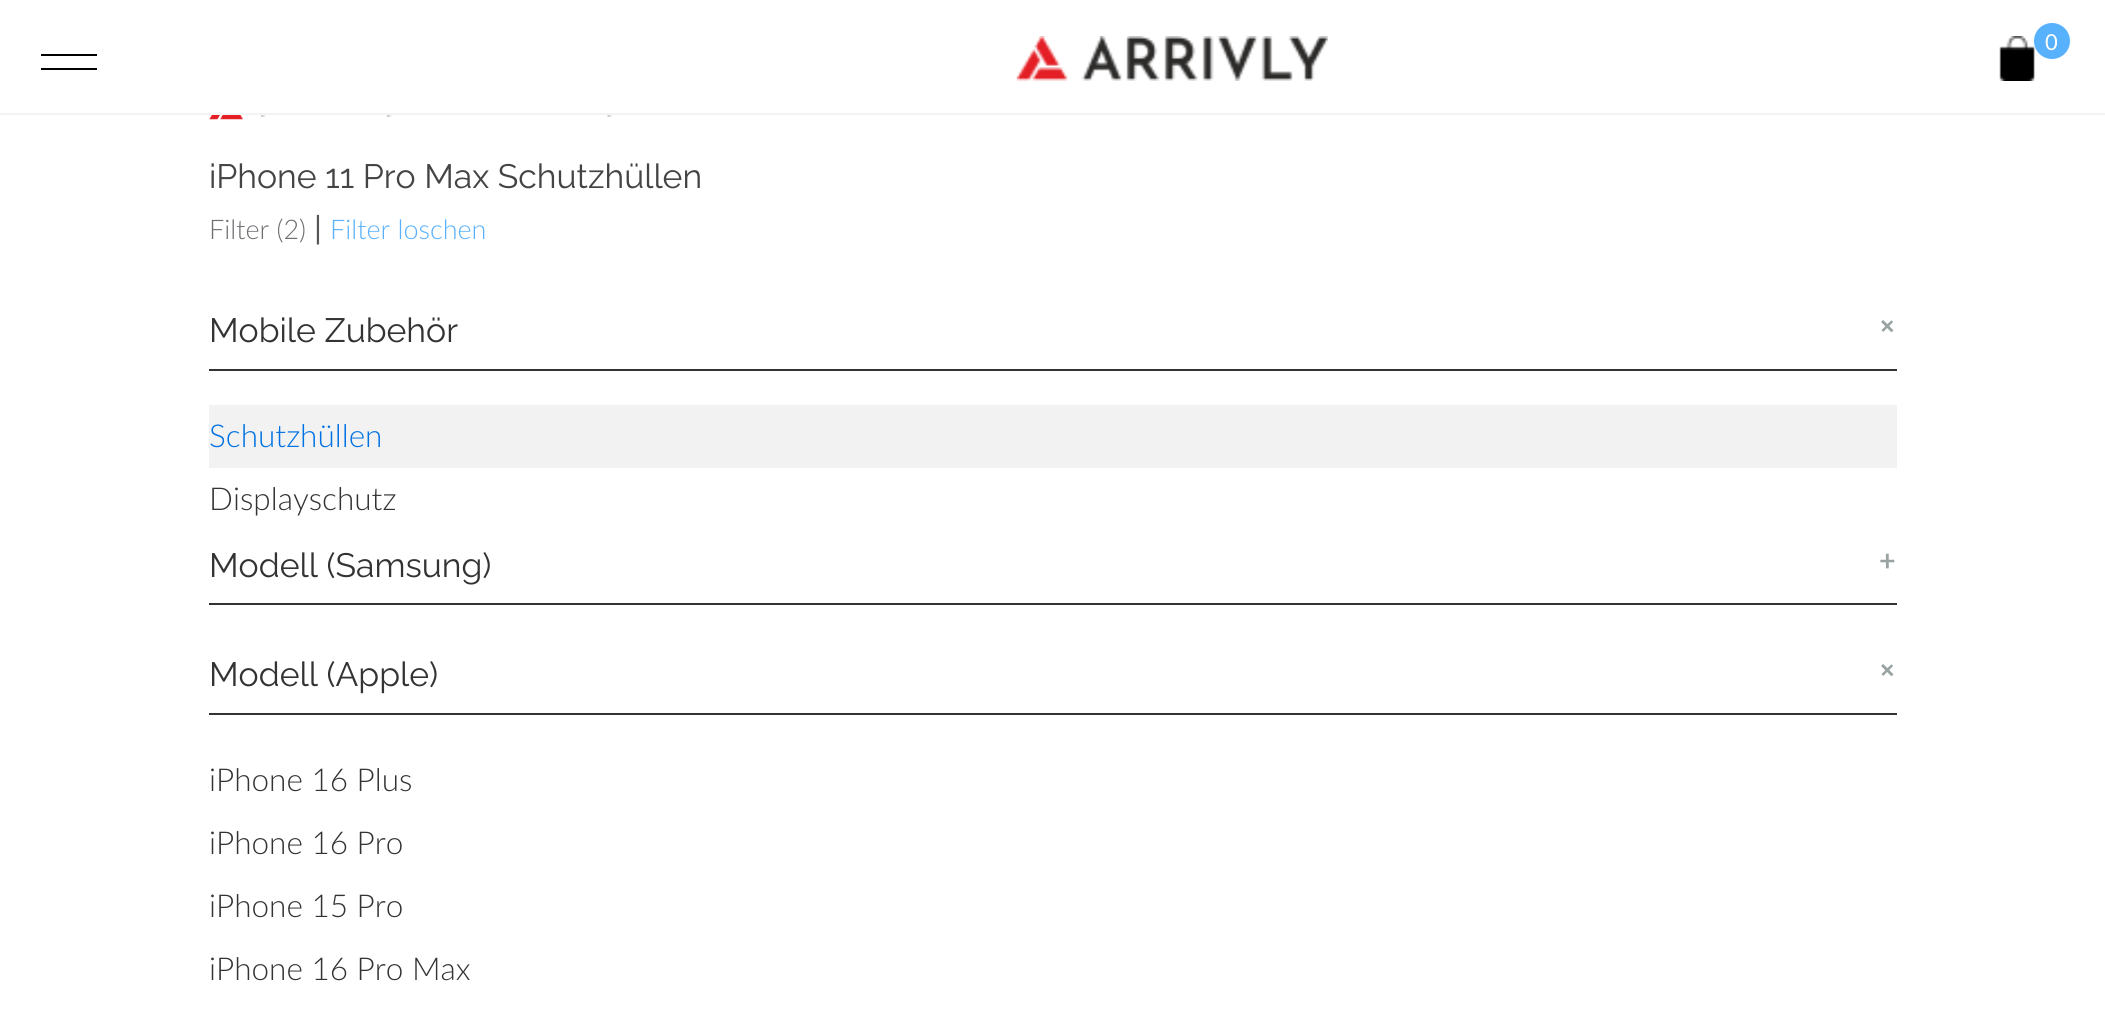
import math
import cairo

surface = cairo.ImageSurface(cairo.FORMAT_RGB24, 2105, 1033)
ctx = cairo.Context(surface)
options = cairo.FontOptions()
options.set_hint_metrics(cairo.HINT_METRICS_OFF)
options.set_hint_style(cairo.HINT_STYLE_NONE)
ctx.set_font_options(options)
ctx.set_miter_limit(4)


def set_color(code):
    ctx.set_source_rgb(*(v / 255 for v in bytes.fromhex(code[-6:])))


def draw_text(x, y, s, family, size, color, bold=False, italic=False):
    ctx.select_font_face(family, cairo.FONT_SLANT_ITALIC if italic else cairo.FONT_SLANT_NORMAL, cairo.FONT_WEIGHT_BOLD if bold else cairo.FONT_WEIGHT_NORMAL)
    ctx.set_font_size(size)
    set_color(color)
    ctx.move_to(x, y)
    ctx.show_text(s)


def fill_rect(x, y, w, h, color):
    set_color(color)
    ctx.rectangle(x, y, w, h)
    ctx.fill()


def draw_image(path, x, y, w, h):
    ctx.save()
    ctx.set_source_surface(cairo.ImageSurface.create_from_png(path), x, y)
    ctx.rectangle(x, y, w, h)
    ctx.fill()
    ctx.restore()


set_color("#ffffff")
ctx.paint()
fill_rect(0, 113, 2105, 2, "#f3f5f5")
fill_rect(41, 54, 56, 2, "#000000")
fill_rect(41, 68, 56, 2, "#000000")
draw_image("assets/img1.png", 1016, 36, 312, 45)
draw_image("assets/img2.png", 1999, 36, 36, 45)
set_color("#58b1fc")
ctx.arc(2052, 41, 18, 0, 2 * math.pi)
ctx.fill()
draw_text(2045, 50, "0", "Lato", 22, "#ffffff")
draw_image("assets/img3.png", 209, 115, 34, 5)
draw_image("assets/img4.png", 261, 115, 5, 2)
draw_image("assets/img4.png", 387, 115, 5, 2)
draw_image("assets/img5.png", 607, 115, 6, 2)
draw_text(209, 188, "iPhone 11 Pro Max Schutzhüllen", "Raleway", 33.75, "#444444")
draw_text(209, 239, "Filter (2)", "Lato Light", 27, "#6e6e73")
draw_text(314, 239, "|", "Lato", 31.5, "#555555")
draw_text(330, 239, "Filter loschen", "Lato Light", 27, "#58b1fc")
fill_rect(209, 369, 1688, 2, "#333333")
draw_text(209, 342, "Mobile Zubehör", "Raleway", 33.75, "#333333")
ctx.save()
ctx.translate(1892, 344)
ctx.rotate(-45 * math.pi / 180)
draw_text(0, 0, "+", "Raleway", 45, "#99a3a4")
ctx.restore()
fill_rect(209, 405, 1688, 63, "#f2f2f2")
draw_text(209, 447, "Schutzhüllen", "Lato Light", 31.5, "#0071e3")
draw_text(209, 510, "Displayschutz", "Lato Light", 31.5, "#333333")
fill_rect(209, 603, 1688, 2, "#333333")
draw_text(209, 577, "Modell (Samsung)", "Raleway", 33.75, "#333333")
draw_text(1878, 577, "+", "Raleway", 45, "#99a3a4")
fill_rect(209, 713, 1688, 2, "#333333")
draw_text(209, 686, "Modell (Apple)", "Raleway", 33.75, "#333333")
ctx.save()
ctx.translate(1892, 688)
ctx.rotate(-45 * math.pi / 180)
draw_text(0, 0, "+", "Raleway", 45, "#99a3a4")
ctx.restore()
draw_text(209, 791, "iPhone 16 Plus", "Lato Light", 31.5, "#333333")
draw_text(209, 854, "iPhone 16 Pro", "Lato Light", 31.5, "#333333")
draw_text(209, 917, "iPhone 15 Pro", "Lato Light", 31.5, "#333333")
draw_text(209, 980, "iPhone 16 Pro Max", "Lato Light", 31.5, "#333333")
surface.write_to_png("output.png")
